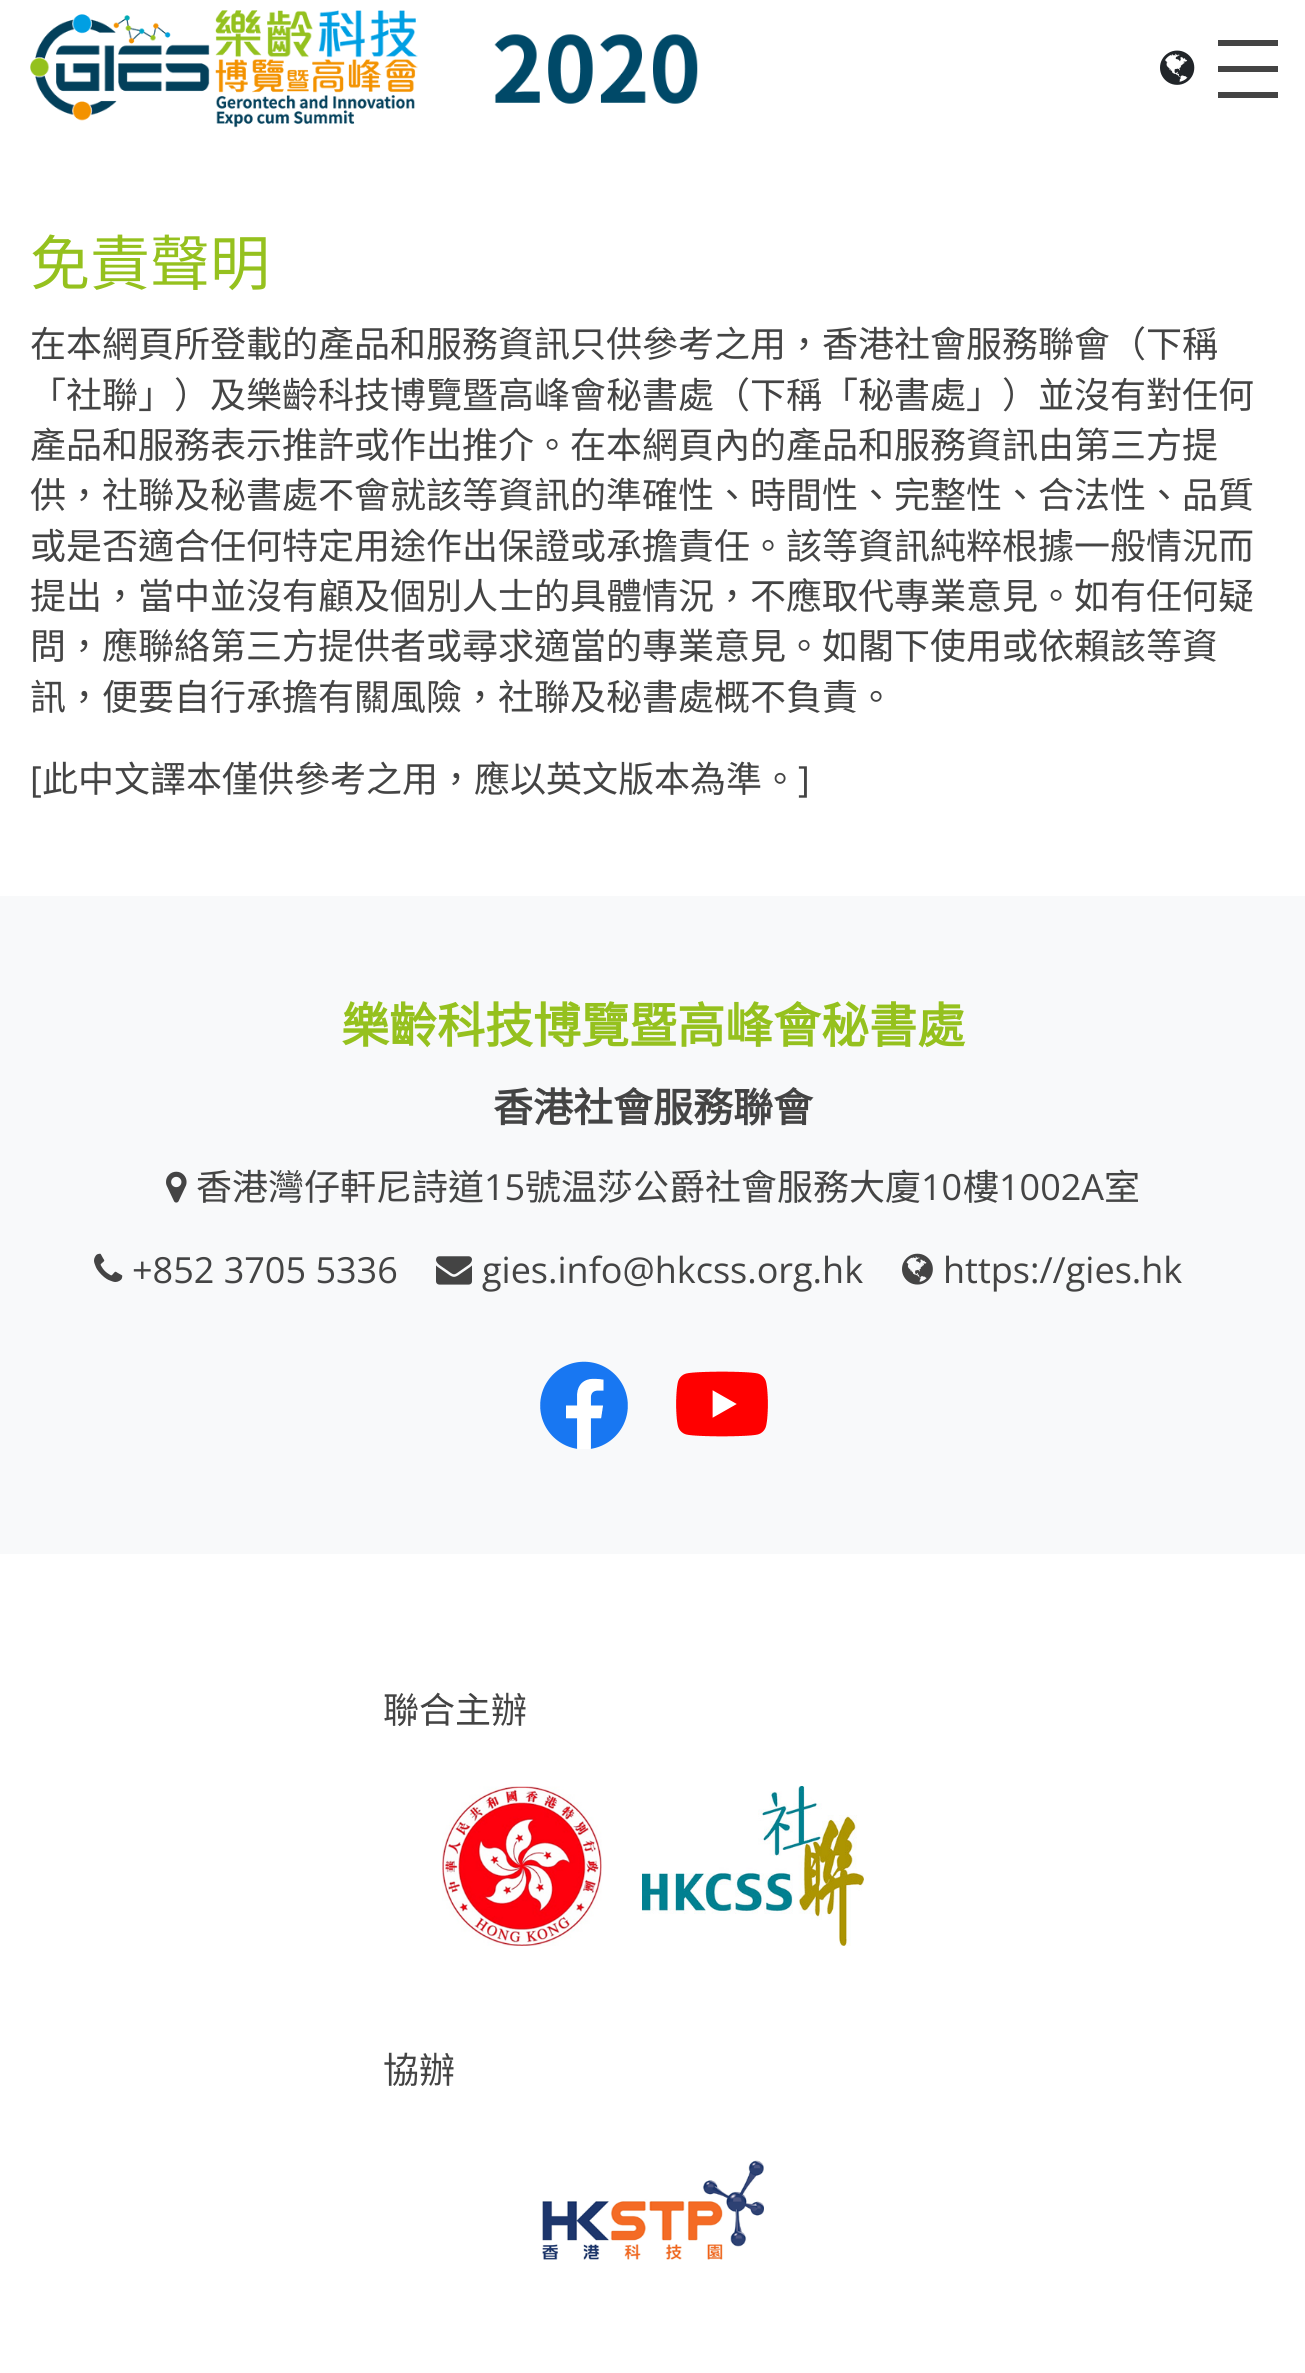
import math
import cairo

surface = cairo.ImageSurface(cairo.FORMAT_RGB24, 1305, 2373)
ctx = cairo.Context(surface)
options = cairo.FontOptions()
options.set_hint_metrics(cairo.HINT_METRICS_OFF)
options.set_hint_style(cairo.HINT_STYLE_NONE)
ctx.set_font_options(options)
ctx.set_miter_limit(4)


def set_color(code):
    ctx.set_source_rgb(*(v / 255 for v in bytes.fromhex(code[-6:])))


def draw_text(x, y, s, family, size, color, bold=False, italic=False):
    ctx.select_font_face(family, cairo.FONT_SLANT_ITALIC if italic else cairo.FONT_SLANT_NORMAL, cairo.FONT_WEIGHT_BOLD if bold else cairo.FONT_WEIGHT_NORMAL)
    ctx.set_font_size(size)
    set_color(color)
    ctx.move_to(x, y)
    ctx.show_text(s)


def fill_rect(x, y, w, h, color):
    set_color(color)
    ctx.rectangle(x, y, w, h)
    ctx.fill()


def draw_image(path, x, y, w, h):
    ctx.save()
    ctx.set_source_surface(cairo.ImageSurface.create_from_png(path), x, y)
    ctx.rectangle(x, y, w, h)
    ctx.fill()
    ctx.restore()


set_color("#ffffff")
ctx.paint()
draw_image("assets/img1.png", 30, 10, 668, 118)
draw_image("assets/img2.png", 1160, 50, 35, 35)
fill_rect(1218, 40, 60, 6, "#444444")
fill_rect(1218, 66, 60, 6, "#444444")
fill_rect(1218, 92, 60, 6, "#444444")
draw_text(30, 285, "免責聲明", "Noto Sans CJK HK", 60, "#95c11e")
draw_text(30, 357, "在本網頁所登載的產品和服務資訊只供參考之用，香港社會服務聯會（下稱", "Noto Sans CJK HK", 36, "#444444")
draw_text(30, 408, "「社聯」）及樂齡科技博覽暨高峰會秘書處（下稱「秘書處」）並沒有對任何", "Noto Sans CJK HK", 36, "#444444")
draw_text(30, 458, "產品和服務表示推許或作出推介。在本網頁內的產品和服務資訊由第三方提", "Noto Sans CJK HK", 36, "#444444")
draw_text(30, 508, "供，社聯及秘書處不會就該等資訊的準確性、時間性、完整性、合法性、品質", "Noto Sans CJK HK", 36, "#444444")
draw_text(30, 559, "或是否適合任何特定用途作出保證或承擔責任。該等資訊純粹根據一般情況而", "Noto Sans CJK HK", 36, "#444444")
draw_text(30, 609, "提出，當中並沒有顧及個別人士的具體情況，不應取代專業意見。如有任何疑", "Noto Sans CJK HK", 36, "#444444")
draw_text(30, 659, "問，應聯絡第三方提供者或尋求適當的專業意見。如閣下使用或依賴該等資", "Noto Sans CJK HK", 36, "#444444")
draw_text(30, 710, "訊，便要自行承擔有關風險，社聯及秘書處概不負責。", "Noto Sans CJK HK", 36, "#444444")
draw_text(30, 792, "[", "Open Sans", 36, "#444444")
draw_text(42, 792, "此中文譯本僅供參考之用，應以英文版本為準。", "Noto Sans CJK HK", 36, "#444444")
draw_text(798, 792, "]", "Open Sans", 36, "#444444")
fill_rect(0, 896, 1305, 658, "#f8f9fa")
draw_text(341, 1043, "樂齡科技博覽暨高峰會秘書處", "Noto Sans CJK HK", 48, "#95c11e", bold=True)
draw_text(493, 1122, "香港社會服務聯會", "Noto Sans CJK HK", 40, "#444444", bold=True)
draw_image("assets/img3.png", 166, 1171, 21, 32)
draw_text(196, 1200, "香港灣仔軒尼詩道", "Noto Sans CJK HK", 36, "#444444")
draw_text(484, 1200, "15", "Open Sans", 36, "#444444")
draw_text(525, 1200, "號温莎公爵社會服務大廈", "Noto Sans CJK HK", 36, "#444444")
draw_text(921, 1200, "10", "Open Sans", 36, "#444444")
draw_text(963, 1200, "樓", "Noto Sans CJK HK", 36, "#444444")
draw_text(999, 1200, "1002A", "Open Sans", 36, "#444444")
draw_text(1104, 1200, "室", "Noto Sans CJK HK", 36, "#444444")
draw_image("assets/img4.png", 94, 1253, 29, 29)
draw_text(132, 1283, "+852 3705 5336", "Open Sans", 36, "#444444")
draw_image("assets/img5.png", 436, 1256, 36, 29)
draw_text(482, 1283, "gies.info@hkcss.org.hk", "Open Sans", 36, "#444444")
draw_image("assets/img6.png", 902, 1253, 31, 32)
draw_text(943, 1283, "https://gies.hk", "Open Sans", 36, "#444444")
draw_image("assets/img7.png", 540, 1361, 88, 88)
draw_image("assets/img8.png", 676, 1371, 92, 66)
draw_text(383, 1723, "聯合主辦", "Noto Sans CJK HK", 36, "#444444")
draw_image("assets/img9.png", 442, 1786, 160, 160)
draw_image("assets/img10.png", 642, 1786, 222, 160)
draw_text(383, 2083, "協辦", "Noto Sans CJK HK", 36, "#444444")
draw_image("assets/img11.png", 542, 2160, 222, 100)
surface.write_to_png("output.png")
